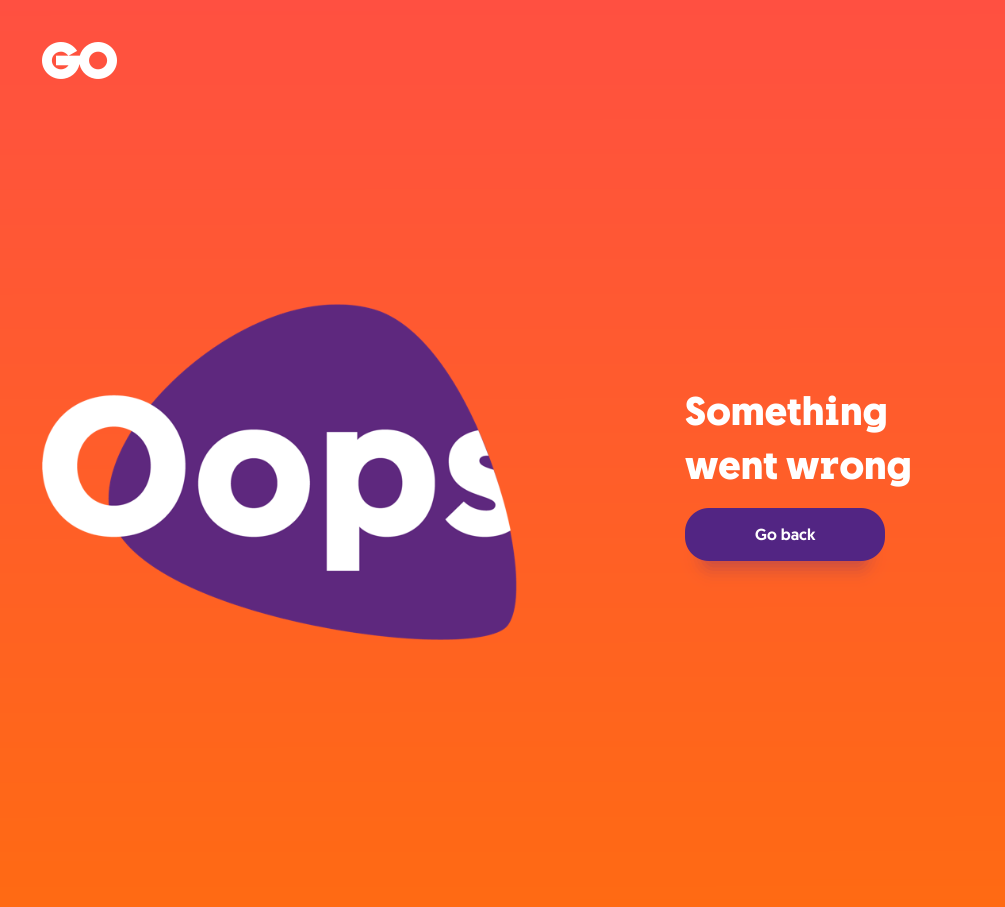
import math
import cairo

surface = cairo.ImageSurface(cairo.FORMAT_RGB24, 1005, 907)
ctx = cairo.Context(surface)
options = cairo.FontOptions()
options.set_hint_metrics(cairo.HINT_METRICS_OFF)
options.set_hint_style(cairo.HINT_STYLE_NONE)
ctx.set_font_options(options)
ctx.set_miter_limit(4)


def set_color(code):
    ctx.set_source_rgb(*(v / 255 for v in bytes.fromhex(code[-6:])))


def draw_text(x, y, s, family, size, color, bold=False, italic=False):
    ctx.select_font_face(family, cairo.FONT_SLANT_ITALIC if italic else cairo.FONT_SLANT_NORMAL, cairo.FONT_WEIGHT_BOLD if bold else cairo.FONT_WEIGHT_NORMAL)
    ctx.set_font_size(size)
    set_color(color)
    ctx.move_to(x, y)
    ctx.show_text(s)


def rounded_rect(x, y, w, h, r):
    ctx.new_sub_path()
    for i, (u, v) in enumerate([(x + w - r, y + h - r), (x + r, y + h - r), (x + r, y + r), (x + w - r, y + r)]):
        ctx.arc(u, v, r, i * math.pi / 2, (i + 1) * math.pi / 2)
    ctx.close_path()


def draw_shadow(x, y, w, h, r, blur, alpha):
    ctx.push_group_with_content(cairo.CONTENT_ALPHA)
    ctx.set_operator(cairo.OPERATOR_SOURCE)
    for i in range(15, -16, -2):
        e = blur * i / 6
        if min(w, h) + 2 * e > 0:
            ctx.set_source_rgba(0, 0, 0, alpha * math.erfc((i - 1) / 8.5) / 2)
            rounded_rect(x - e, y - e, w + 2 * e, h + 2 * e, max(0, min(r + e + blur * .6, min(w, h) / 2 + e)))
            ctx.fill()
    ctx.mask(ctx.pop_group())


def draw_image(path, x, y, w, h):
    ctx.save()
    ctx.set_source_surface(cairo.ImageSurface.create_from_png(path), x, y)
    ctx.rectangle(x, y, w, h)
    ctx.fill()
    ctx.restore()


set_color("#ffffff")
ctx.paint()
gradient = cairo.LinearGradient(502, 0, 503, 907)
gradient.add_color_stop_rgba(0, 1, 0.314, 0.255, 1)
gradient.add_color_stop_rgba(1, 1, 0.416, 0.075, 1)
ctx.set_source(gradient)
ctx.rectangle(0, 0, 1005, 907)
ctx.fill()
draw_image("assets/img1.png", 42, 42, 75, 37)
draw_image("assets/img2.png", 42, 304, 475, 336)
draw_text(685, 425, "Something", "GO", 40, "#ffffff", bold=True)
draw_text(685, 479, "went wrong", "GO", 40, "#ffffff", bold=True)
set_color("#522583")
draw_shadow(705, 546, 160, 20, 10, 10, 0.4)
set_color("#522583")
rounded_rect(685, 508, 200, 53, 24)
ctx.fill()
draw_text(755, 540, "Go back", "GO Medium", 16, "#ffffff")
surface.write_to_png("output.png")
